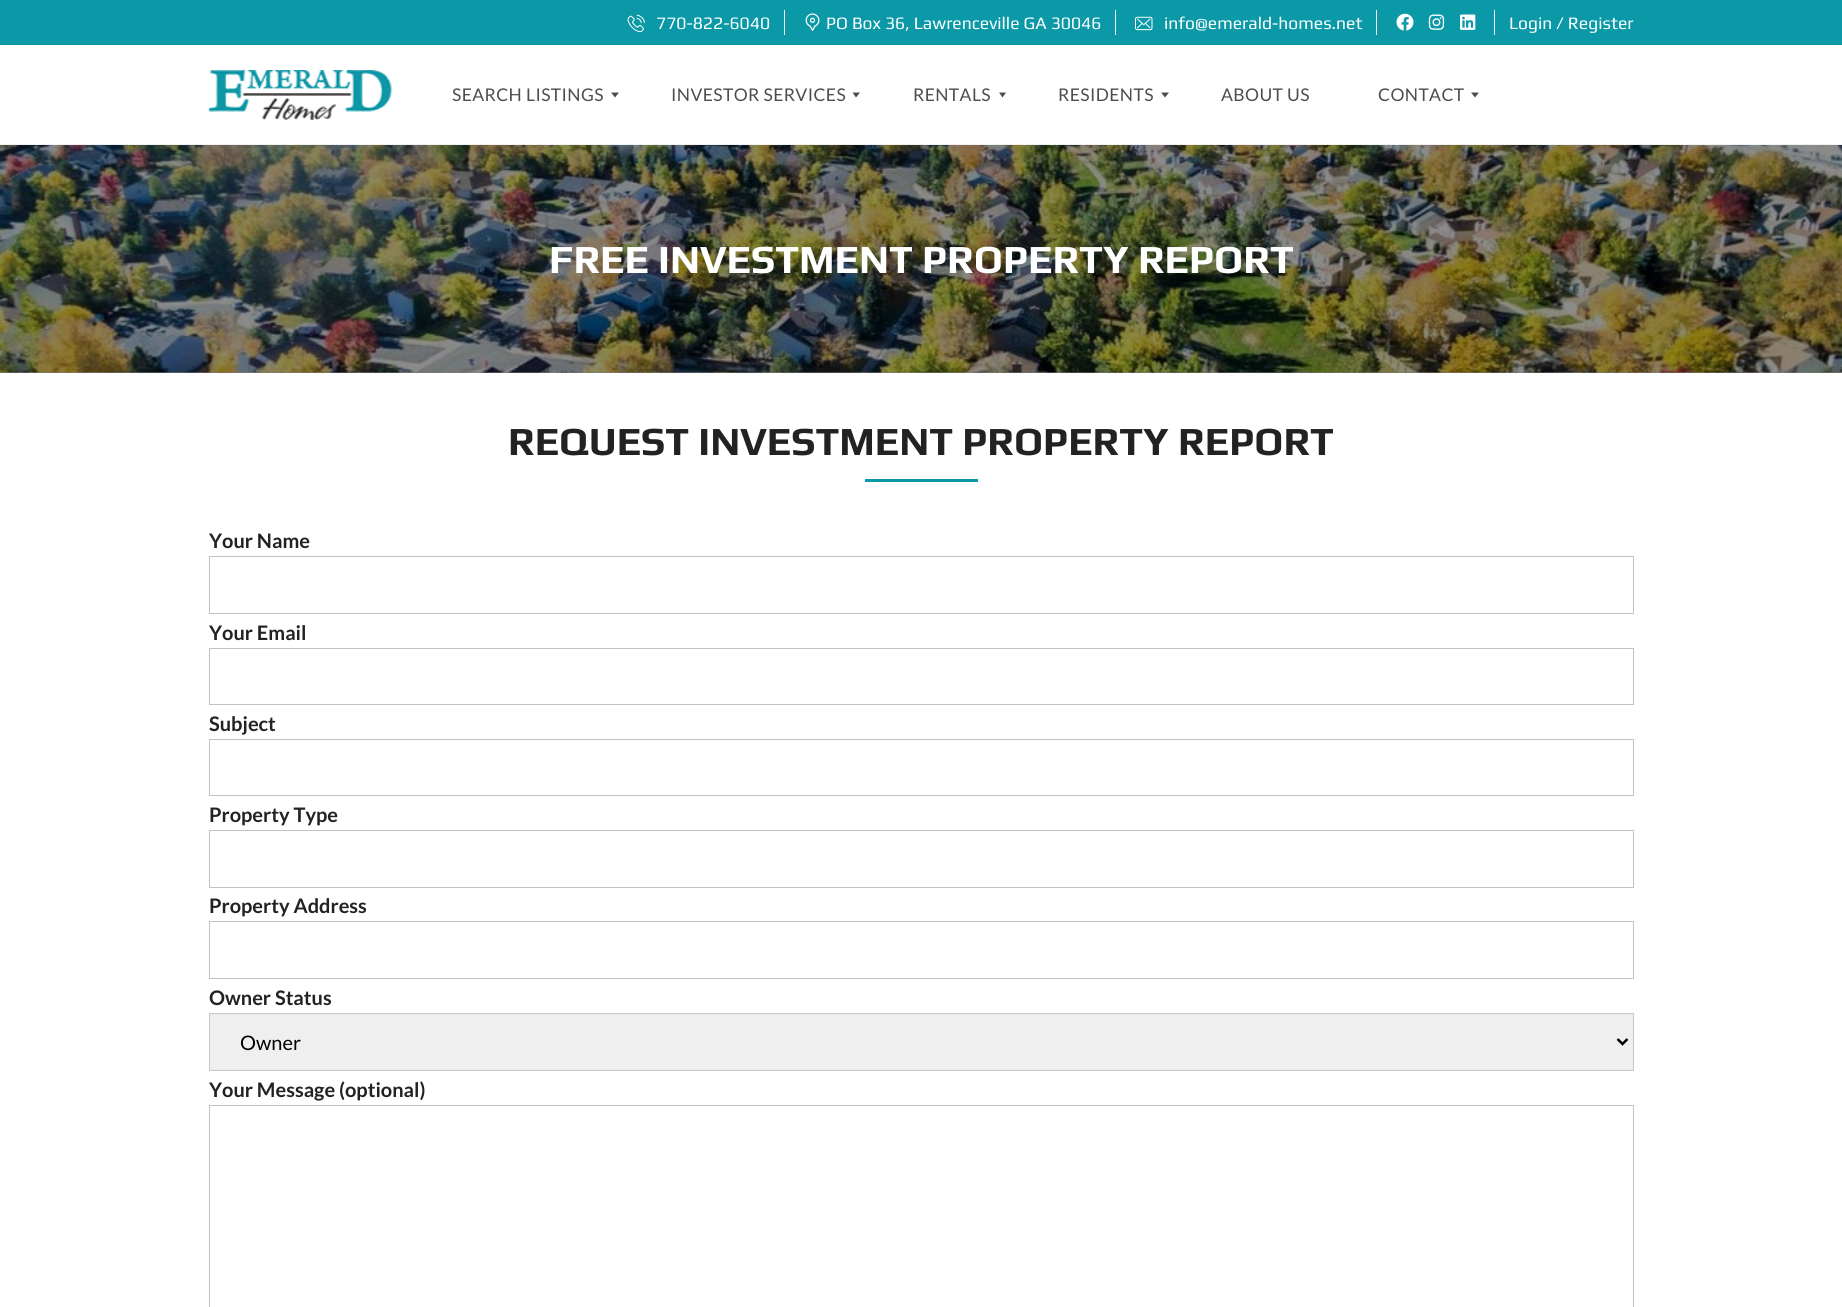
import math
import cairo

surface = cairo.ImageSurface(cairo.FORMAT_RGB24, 1842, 1307)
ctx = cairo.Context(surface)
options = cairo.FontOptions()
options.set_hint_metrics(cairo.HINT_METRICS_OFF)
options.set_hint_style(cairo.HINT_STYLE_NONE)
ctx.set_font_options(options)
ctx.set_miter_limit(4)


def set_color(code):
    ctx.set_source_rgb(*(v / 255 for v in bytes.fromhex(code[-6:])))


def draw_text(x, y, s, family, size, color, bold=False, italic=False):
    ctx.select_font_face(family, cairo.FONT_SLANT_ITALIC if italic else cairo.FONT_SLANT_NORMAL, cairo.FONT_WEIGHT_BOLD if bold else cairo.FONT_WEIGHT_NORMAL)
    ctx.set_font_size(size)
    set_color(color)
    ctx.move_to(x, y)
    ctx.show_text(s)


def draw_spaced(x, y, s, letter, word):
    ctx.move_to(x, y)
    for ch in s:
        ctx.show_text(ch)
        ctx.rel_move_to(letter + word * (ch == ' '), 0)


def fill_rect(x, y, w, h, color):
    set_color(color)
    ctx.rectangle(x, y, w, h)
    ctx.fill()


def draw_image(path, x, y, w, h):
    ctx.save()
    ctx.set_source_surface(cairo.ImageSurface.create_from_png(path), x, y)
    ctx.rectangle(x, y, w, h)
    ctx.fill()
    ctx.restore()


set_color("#ffffff")
ctx.paint()
fill_rect(0, 0, 1842, 45, "#0b99a7")
draw_image("assets/img1.png", 627, 14, 18, 19)
draw_text(656, 29, "770-822-6040", "Play", 17.5, "#ffffff")
fill_rect(784, 10, 1, 25, "#f0f0f0")
draw_image("assets/img2.png", 805, 13, 15, 18)
draw_text(826, 29, "PO Box 36, Lawrenceville GA 30046", "Play", 17.5, "#ffffff")
fill_rect(1115, 10, 1, 25, "#f0f0f0")
draw_image("assets/img3.png", 1135, 16, 18, 15)
draw_text(1164, 29, "info@emerald-homes.net", "Play", 17.5, "#ffffff")
fill_rect(1376, 10, 1, 25, "#f0f0f0")
draw_image("assets/img4.png", 1396, 13, 18, 18)
draw_image("assets/img5.png", 1428, 14, 17, 16)
draw_image("assets/img6.png", 1460, 14, 16, 16)
fill_rect(1494, 10, 1, 25, "#f0f0f0")
draw_text(1509, 29, "Login / Register", "Play", 17.5, "#ffffff")
draw_image("assets/img7.png", 208, 70, 184, 50)
ctx.select_font_face("Lato")
set_color("#4d4d4d")
draw_spaced(452, 101, "SEARCH LISTINGS", 0.4, 0)
ctx.new_path()
ctx.move_to(611, 92.5)
ctx.line_to(619, 92.5)
ctx.line_to(615, 97.5)
ctx.close_path()
ctx.fill()
draw_spaced(671, 101, "INVESTOR SERVICES", 0.4, 0)
ctx.new_path()
ctx.move_to(852.5, 92.5)
ctx.line_to(860, 92.5)
ctx.line_to(856, 97.5)
ctx.close_path()
ctx.fill()
draw_spaced(913, 101, "RENTALS", 0.4, 0)
ctx.new_path()
ctx.move_to(999, 92.5)
ctx.line_to(1006, 92.5)
ctx.line_to(1002.5, 97.5)
ctx.close_path()
ctx.fill()
draw_spaced(1058, 101, "RESIDENTS", 0.4, 0)
ctx.new_path()
ctx.move_to(1161, 92.5)
ctx.line_to(1169, 92.5)
ctx.line_to(1165, 97.5)
ctx.close_path()
ctx.fill()
draw_spaced(1221, 101, "ABOUT US", 0.4, 0)
draw_spaced(1378, 101, "CONTACT", 0.4, 0)
ctx.new_path()
ctx.move_to(1471, 92.5)
ctx.line_to(1479, 92.5)
ctx.line_to(1475, 97.5)
ctx.close_path()
ctx.fill()
fill_rect(0, 144, 1842, 1, "#f0f0f0")
fill_rect(0, 372, 1842, 1, "#7e7e7e")
draw_image("assets/img8.png", 0, 145, 1842, 228)
draw_text(549, 273, "FREE INVESTMENT PROPERTY REPORT", "Play", 40, "#ffffff", bold=True)
draw_text(508, 455, "REQUEST INVESTMENT PROPERTY REPORT", "Play", 40, "#222222", bold=True)
fill_rect(865, 479, 113, 3, "#0b99a7")
draw_text(209, 548, "Your Name", "Lato", 20, "#222222", bold=True)
ctx.rectangle(209.5, 556.5, 1424, 57)
set_color("#c3c3c5")
ctx.set_line_width(1)
ctx.stroke()
draw_text(209, 640, "Your Email", "Lato", 20, "#222222", bold=True)
ctx.rectangle(209.5, 648.5, 1424, 56)
set_color("#c3c3c5")
ctx.stroke()
draw_text(209, 731, "Subject", "Lato", 20, "#222222", bold=True)
ctx.rectangle(209.5, 739.5, 1424, 56)
set_color("#c3c3c5")
ctx.stroke()
draw_text(209, 822, "Property Type", "Lato", 20, "#222222", bold=True)
ctx.rectangle(209.5, 830.5, 1424, 57)
set_color("#c3c3c5")
ctx.stroke()
draw_text(209, 913, "Property Address", "Lato", 20, "#222222", bold=True)
ctx.rectangle(209.5, 921.5, 1424, 57)
set_color("#c3c3c5")
ctx.stroke()
draw_text(209, 1005, "Owner Status", "Lato", 20, "#222222", bold=True)
set_color("#efefef")
ctx.rectangle(209.5, 1013.5, 1424, 57)
ctx.fill_preserve()
set_color("#c6c6c7")
ctx.stroke()
ctx.new_path()
ctx.move_to(1617.5, 1039)
ctx.line_to(1622.5, 1044)
ctx.line_to(1627.5, 1039)
set_color("#000000")
ctx.set_line_width(2.5)
ctx.stroke()
draw_text(240, 1050, "Owner", "Lato", 20, "#000000")
draw_text(209, 1097, "Your Message (optional)", "Lato", 20, "#222222", bold=True)
ctx.rectangle(209.5, 1105.5, 1424, 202)
set_color("#c3c3c5")
ctx.set_line_width(1)
ctx.stroke()
surface.write_to_png("output.png")
